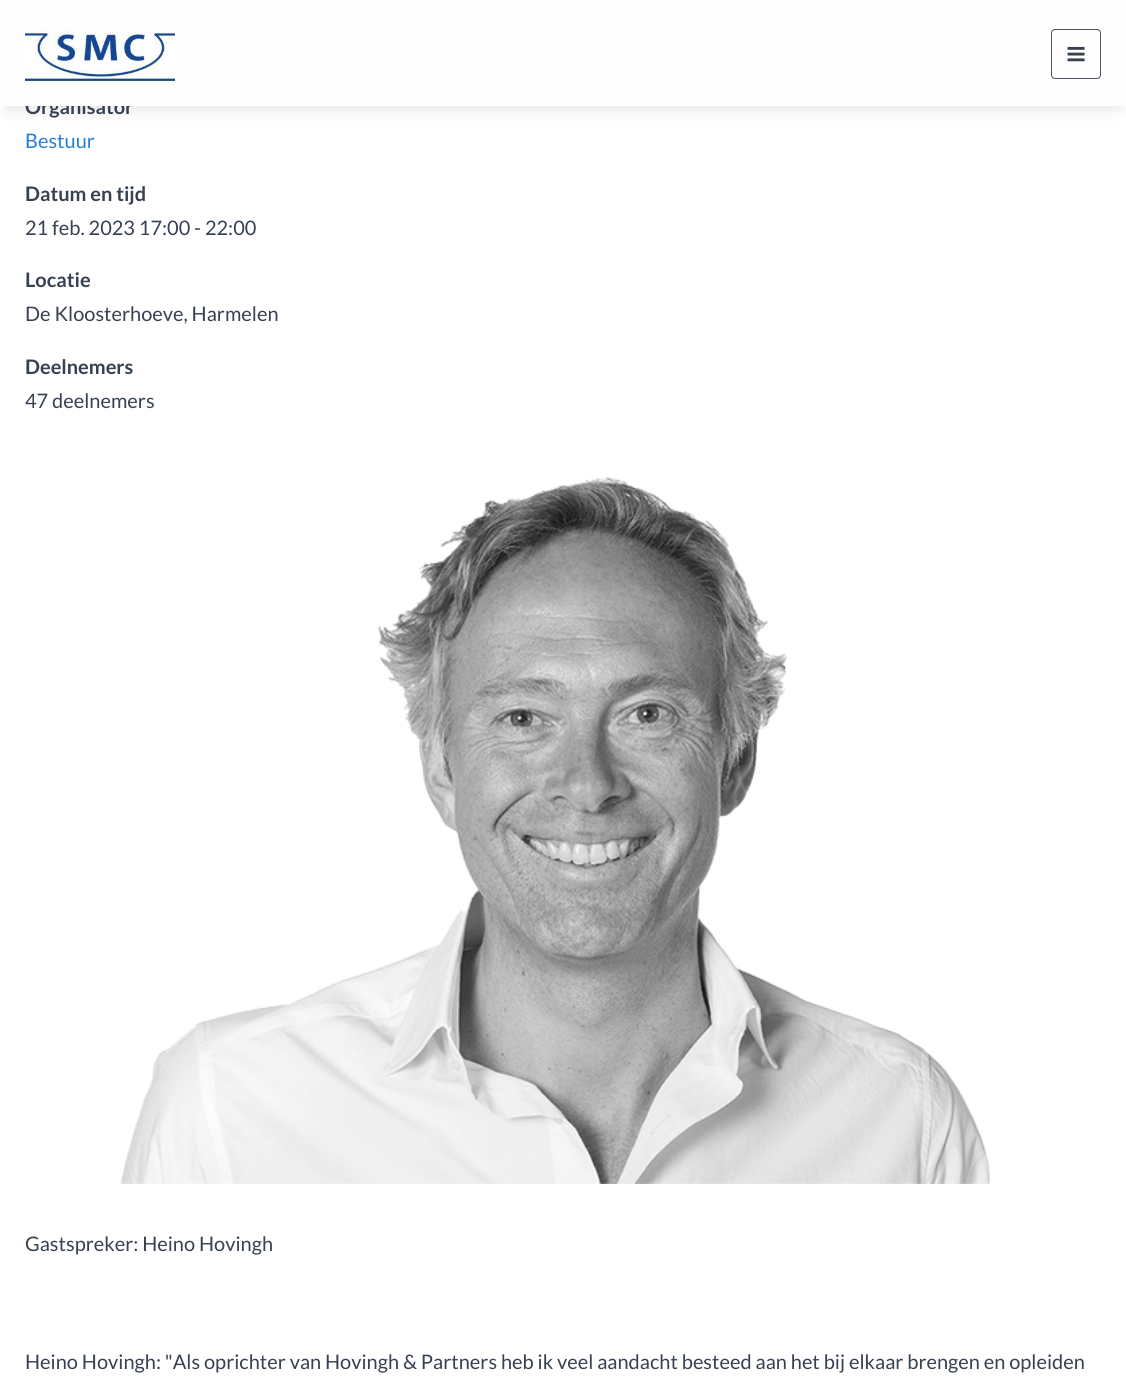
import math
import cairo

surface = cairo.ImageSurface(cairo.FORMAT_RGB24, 1126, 1377)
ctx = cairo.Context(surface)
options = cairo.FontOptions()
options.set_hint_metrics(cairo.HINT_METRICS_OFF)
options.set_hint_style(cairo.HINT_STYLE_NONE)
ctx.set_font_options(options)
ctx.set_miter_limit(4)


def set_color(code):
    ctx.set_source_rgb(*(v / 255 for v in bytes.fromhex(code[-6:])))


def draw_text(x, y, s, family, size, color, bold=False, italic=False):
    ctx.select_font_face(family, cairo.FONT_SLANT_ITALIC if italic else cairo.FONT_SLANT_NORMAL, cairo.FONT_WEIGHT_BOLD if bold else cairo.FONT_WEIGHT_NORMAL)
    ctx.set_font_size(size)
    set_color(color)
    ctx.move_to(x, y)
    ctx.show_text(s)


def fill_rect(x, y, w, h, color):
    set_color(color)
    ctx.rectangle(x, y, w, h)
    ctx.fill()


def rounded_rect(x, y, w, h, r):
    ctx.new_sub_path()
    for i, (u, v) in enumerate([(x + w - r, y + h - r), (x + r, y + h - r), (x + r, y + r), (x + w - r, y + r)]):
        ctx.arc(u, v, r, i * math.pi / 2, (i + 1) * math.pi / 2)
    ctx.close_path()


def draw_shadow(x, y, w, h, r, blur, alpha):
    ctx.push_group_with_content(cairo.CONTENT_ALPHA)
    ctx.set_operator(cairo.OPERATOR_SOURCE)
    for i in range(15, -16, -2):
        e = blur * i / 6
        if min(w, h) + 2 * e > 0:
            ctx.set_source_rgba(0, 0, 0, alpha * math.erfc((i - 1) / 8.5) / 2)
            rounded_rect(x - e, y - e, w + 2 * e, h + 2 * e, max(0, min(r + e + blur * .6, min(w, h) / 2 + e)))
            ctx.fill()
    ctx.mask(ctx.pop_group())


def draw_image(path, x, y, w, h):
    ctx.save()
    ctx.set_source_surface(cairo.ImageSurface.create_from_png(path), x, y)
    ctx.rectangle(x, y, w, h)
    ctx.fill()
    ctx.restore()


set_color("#ffffff")
ctx.paint()
set_color("#000000")
draw_shadow(6, 16, 1114, 94, 0, 5, 0.04)
draw_shadow(6, 16, 1114, 94, 0, 9.5, 0.06)
draw_text(25, 114, "Organisator", "Lato", 20, "#374151", bold=True)
fill_rect(0, 8, 1126, 98, "#fefefe")
draw_image("assets/img1.png", 25, 30, 150, 57)
rounded_rect(1051.5, 29.5, 49, 49, 3.5)
set_color("#4b5563")
ctx.set_line_width(1)
ctx.stroke()
draw_image("assets/img2.png", 1067, 46, 18, 16)
draw_text(25, 148, "Bestuur", "Lato", 20, "#2480d6")
draw_text(25, 201, "Datum en tijd", "Lato", 20, "#374151", bold=True)
draw_text(25, 235, "21 feb. 2023 17:00 - 22:00", "Lato", 20, "#374151")
draw_text(25, 287, "Locatie", "Lato", 20, "#374151", bold=True)
draw_text(25, 321, "De Kloosterhoeve, Harmelen", "Lato", 20, "#374151")
draw_text(25, 374, "Deelnemers", "Lato", 20, "#374151", bold=True)
draw_text(25, 408, "47 deelnemers", "Lato", 20, "#374151")
draw_image("assets/img3.png", 120, 477, 870, 707)
draw_text(25, 1251, "Gastspreker: Heino Hovingh", "Lato", 20, "#374151")
draw_text(25, 1369, "Heino Hovingh: \"Als oprichter van Hovingh & Partners heb ik veel aandacht besteed aan het bij elkaar brengen en opleiden", "Lato", 20, "#374151")
surface.write_to_png("output.png")
